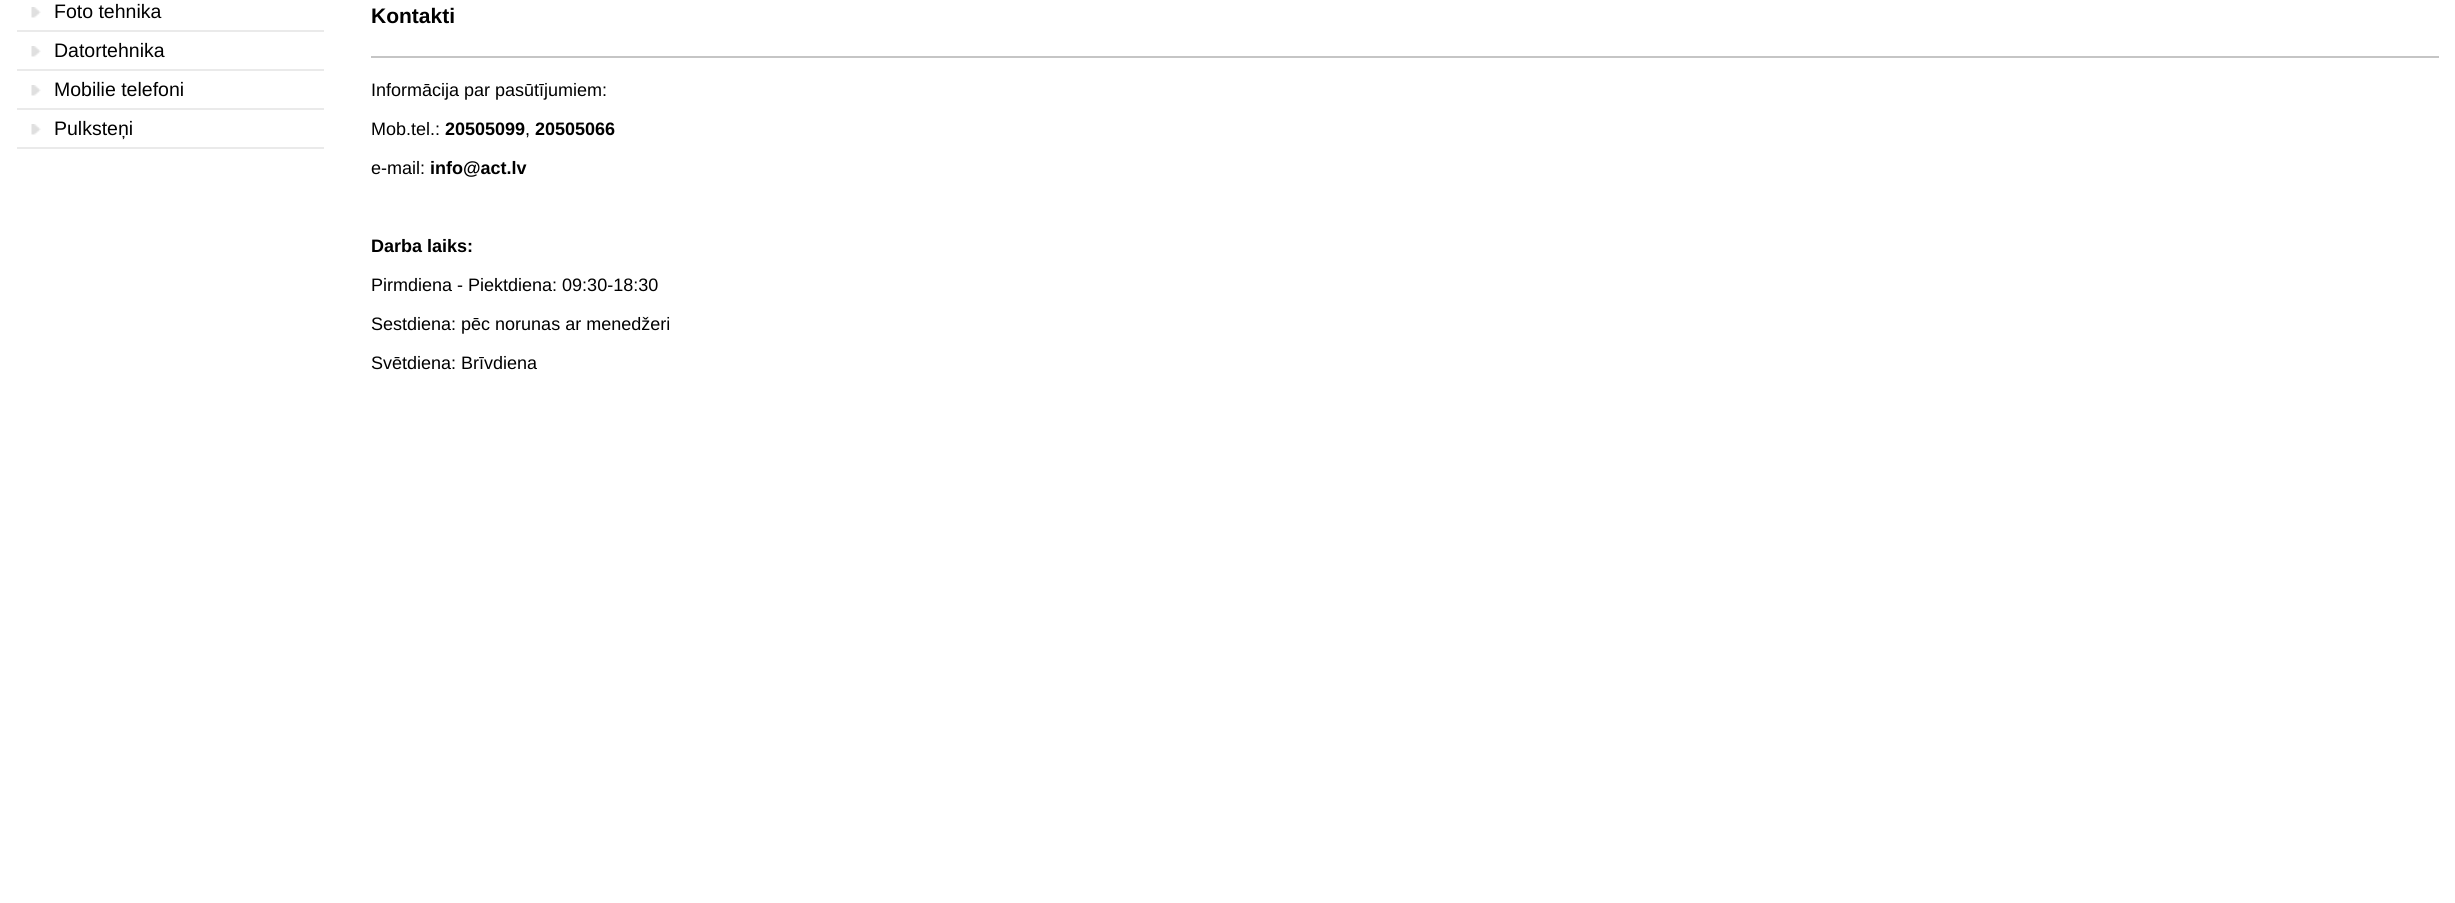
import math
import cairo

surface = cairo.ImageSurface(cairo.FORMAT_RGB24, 2455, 903)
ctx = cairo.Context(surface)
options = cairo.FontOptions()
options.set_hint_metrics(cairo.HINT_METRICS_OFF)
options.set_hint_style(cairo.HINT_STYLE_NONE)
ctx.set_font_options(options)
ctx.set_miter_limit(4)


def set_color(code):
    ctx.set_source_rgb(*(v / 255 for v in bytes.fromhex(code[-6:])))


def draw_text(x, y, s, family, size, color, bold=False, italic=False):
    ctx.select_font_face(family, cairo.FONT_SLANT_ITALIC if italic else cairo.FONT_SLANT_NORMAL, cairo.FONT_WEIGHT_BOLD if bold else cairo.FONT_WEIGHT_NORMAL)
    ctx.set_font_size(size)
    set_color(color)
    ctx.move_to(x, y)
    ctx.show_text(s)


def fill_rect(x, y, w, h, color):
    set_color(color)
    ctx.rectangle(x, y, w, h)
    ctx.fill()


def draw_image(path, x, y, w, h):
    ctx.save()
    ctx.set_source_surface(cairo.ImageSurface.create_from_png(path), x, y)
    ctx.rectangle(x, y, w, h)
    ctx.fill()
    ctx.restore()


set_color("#ffffff")
ctx.paint()
draw_image("assets/img1.png", 31, 7, 10, 11)
fill_rect(17, 30, 307, 2, "#eaeaea")
draw_text(54, 18, "Foto tehnika", "Liberation Sans", 19.5, "#000000")
draw_image("assets/img1.png", 31, 46, 10, 11)
fill_rect(17, 69, 307, 2, "#eaeaea")
draw_text(54, 57, "Datortehnika", "Liberation Sans", 19.5, "#000000")
draw_image("assets/img1.png", 31, 85, 10, 11)
fill_rect(17, 108, 307, 2, "#eaeaea")
draw_text(54, 96, "Mobilie telefoni", "Liberation Sans", 19.5, "#000000")
draw_image("assets/img1.png", 31, 124, 10, 11)
fill_rect(17, 147, 307, 2, "#eaeaea")
draw_text(54, 135, "Pulksteņi", "Liberation Sans", 19.5, "#000000")
fill_rect(371, 56, 2068, 2, "#c5c5c5")
draw_text(371, 23, "Kontakti", "Liberation Sans", 21, "#000000", bold=True)
draw_text(371, 96, "Informācija par pasūtījumiem:", "Liberation Sans", 18, "#000000")
draw_text(371, 135, "Mob.tel.:", "Liberation Sans", 18, "#000000")
draw_text(445, 135, "20505099", "Liberation Sans", 18, "#000000", bold=True)
draw_text(525, 135, ",", "Liberation Sans", 18, "#000000")
draw_text(535, 135, "20505066", "Liberation Sans", 18, "#000000", bold=True)
draw_text(371, 174, "e-mail:", "Liberation Sans", 18, "#000000")
draw_text(430, 174, "info@act.lv", "Liberation Sans", 18, "#000000", bold=True)
draw_text(371, 252, "Darba laiks:", "Liberation Sans", 18, "#000000", bold=True)
draw_text(371, 291, "Pirmdiena - Piektdiena: 09:30-18:30", "Liberation Sans", 18, "#000000")
draw_text(371, 330, "Sestdiena: pēc norunas ar menedžeri", "Liberation Sans", 18, "#000000")
draw_text(371, 369, "Svētdiena: Brīvdiena", "Liberation Sans", 18, "#000000")
surface.write_to_png("output.png")
